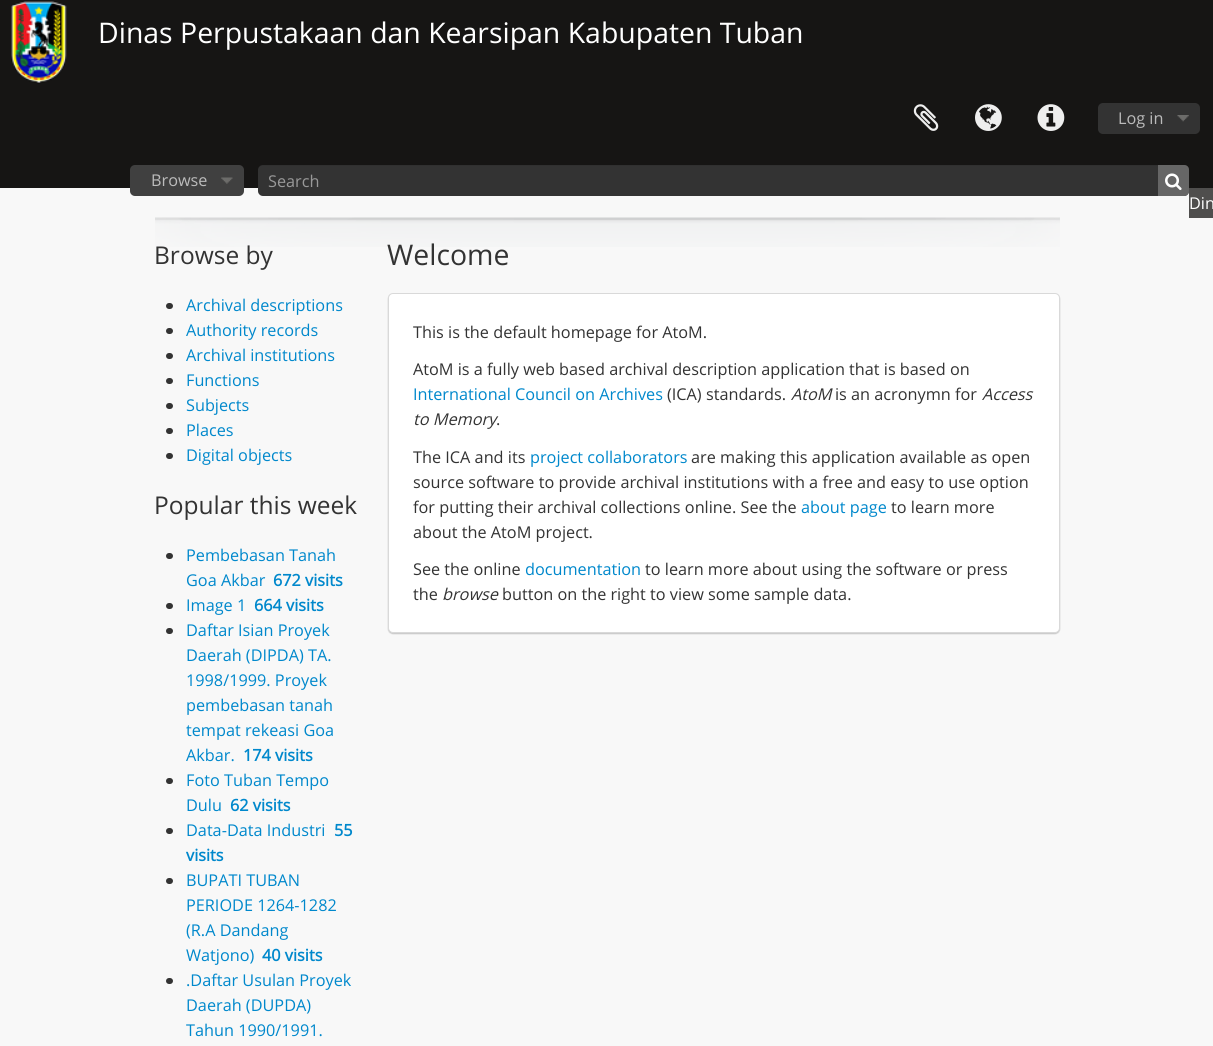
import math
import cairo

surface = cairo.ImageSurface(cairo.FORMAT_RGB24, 1213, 1046)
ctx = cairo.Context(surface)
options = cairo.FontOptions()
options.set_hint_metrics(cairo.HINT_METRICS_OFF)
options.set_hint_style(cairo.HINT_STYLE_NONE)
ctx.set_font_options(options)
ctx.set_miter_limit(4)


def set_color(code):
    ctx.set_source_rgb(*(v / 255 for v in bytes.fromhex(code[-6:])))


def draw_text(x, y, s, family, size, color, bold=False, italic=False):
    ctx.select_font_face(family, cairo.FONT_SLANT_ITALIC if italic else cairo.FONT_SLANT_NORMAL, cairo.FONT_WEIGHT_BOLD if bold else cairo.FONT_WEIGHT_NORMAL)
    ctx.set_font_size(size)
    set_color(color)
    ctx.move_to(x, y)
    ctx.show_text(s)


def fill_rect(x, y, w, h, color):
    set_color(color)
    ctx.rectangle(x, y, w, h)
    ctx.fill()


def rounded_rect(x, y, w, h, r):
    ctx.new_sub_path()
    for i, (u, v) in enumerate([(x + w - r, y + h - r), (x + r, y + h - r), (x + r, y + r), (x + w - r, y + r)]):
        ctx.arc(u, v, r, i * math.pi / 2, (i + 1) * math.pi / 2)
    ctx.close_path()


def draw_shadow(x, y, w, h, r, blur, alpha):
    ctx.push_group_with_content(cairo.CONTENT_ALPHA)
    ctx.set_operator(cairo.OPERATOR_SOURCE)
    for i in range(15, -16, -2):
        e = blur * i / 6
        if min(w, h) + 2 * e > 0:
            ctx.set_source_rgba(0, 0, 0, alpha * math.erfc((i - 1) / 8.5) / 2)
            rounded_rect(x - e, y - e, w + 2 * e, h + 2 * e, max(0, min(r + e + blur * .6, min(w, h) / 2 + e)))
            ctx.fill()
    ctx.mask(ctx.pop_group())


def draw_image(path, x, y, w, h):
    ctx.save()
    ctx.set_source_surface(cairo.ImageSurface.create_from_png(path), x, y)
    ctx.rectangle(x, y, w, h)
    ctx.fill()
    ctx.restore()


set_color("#f8f8f8")
ctx.paint()
fill_rect(0, 0, 1213, 188, "#161514")
draw_image("assets/img1.png", 11, 1, 56, 83)
draw_text(98, 43, "Dinas Perpustakaan dan Kearsipan Kabupaten Tuban", "Open Sans", 28.4, "#ffffff")
draw_image("assets/img2.png", 913, 104, 26, 27)
draw_image("assets/img3.png", 975, 104, 27, 27)
draw_image("assets/img4.png", 1037, 104, 28, 27)
set_color("#333333")
rounded_rect(1098, 103, 102, 31, 5)
ctx.fill()
draw_image("assets/img5.png", 1177, 115, 12, 7)
draw_text(1118, 124, "Log in", "Open Sans", 16.25, "#bbbbbb")
set_color("#404040")
rounded_rect(130, 165, 114, 31, 5)
ctx.fill()
draw_image("assets/img6.png", 221, 177, 12, 7)
draw_text(151, 186, "Browse", "Open Sans", 16.25, "#bbbbbb")
set_color("#333333")
rounded_rect(258, 165, 931, 31, 5)
ctx.fill()
ctx.set_source_rgba(0, 0, 0, 0.07)
ctx.new_path()
ctx.move_to(262, 166)
ctx.line_to(1184, 166)
ctx.curve_to(1187, 166, 1189, 168, 1189, 171)
ctx.curve_to(1189, 168, 1187, 165, 1184, 165)
ctx.line_to(263, 165)
ctx.curve_to(260, 165, 258, 168, 258, 171)
ctx.curve_to(258, 168, 260, 166, 262, 166)
ctx.close_path()
ctx.fill()
draw_text(268, 187, "Search", "Open Sans", 16.25, "#999999")
set_color("#666666")
ctx.new_path()
ctx.move_to(1158, 165)
ctx.line_to(1184, 165)
ctx.curve_to(1187, 165, 1189, 167, 1189, 170)
ctx.line_to(1189, 191)
ctx.curve_to(1189, 194, 1187, 196, 1184, 196)
ctx.line_to(1158, 196)
ctx.close_path()
ctx.fill()
draw_image("assets/img7.png", 1165, 173, 17, 17)
fill_rect(1189, 188, 24, 30, "#4f4e4d")
draw_text(1189, 209, "Din", "Open Sans", 16.25, "#ffffff")
draw_image("assets/img8.png", 155, 217, 905, 30)
draw_text(154, 264, "Browse by", "Open Sans", 24.5, "#333333")
rounded_rect(166, 303, 7, 6, 3)
ctx.fill()
draw_text(186, 311, "Archival descriptions", "Open Sans", 16.25, "#0088cc")
set_color("#333333")
rounded_rect(166, 328, 7, 6, 3)
ctx.fill()
draw_text(186, 336, "Authority records", "Open Sans", 16.25, "#0088cc")
set_color("#333333")
rounded_rect(166, 353, 7, 6, 3)
ctx.fill()
draw_text(186, 361, "Archival institutions", "Open Sans", 16.25, "#0088cc")
set_color("#333333")
rounded_rect(166, 378, 7, 6, 3)
ctx.fill()
draw_text(186, 386, "Functions", "Open Sans", 16.25, "#0088cc")
set_color("#333333")
rounded_rect(166, 403, 7, 6, 3)
ctx.fill()
draw_text(186, 411, "Subjects", "Open Sans", 16.25, "#0088cc")
set_color("#333333")
rounded_rect(166, 428, 7, 6, 3)
ctx.fill()
draw_text(186, 436, "Places", "Open Sans", 16.25, "#0088cc")
set_color("#333333")
rounded_rect(166, 453, 7, 6, 3)
ctx.fill()
draw_text(186, 461, "Digital objects", "Open Sans", 16.25, "#0088cc")
draw_text(154, 514, "Popular this week", "Open Sans", 24.5, "#333333")
rounded_rect(166, 553, 7, 6, 3)
ctx.fill()
draw_text(186, 561, "Pembebasan Tanah", "Open Sans", 16.25, "#0088cc")
draw_text(186, 586, "Goa Akbar", "Open Sans", 16.25, "#0088cc")
draw_text(273, 586, "672 visits", "Open Sans", 16.25, "#0088cc", bold=True)
set_color("#333333")
rounded_rect(166, 603, 7, 6, 3)
ctx.fill()
draw_text(186, 611, "Image 1", "Open Sans", 16.25, "#0088cc")
draw_text(254, 611, "664 visits", "Open Sans", 16.25, "#0088cc", bold=True)
set_color("#333333")
rounded_rect(166, 628, 7, 6, 3)
ctx.fill()
draw_text(186, 636, "Daftar Isian Proyek", "Open Sans", 16.25, "#0088cc")
draw_text(186, 661, "Daerah (DIPDA) TA.", "Open Sans", 16.25, "#0088cc")
draw_text(186, 686, "1998/1999. Proyek", "Open Sans", 16.25, "#0088cc")
draw_text(186, 711, "pembebasan tanah", "Open Sans", 16.25, "#0088cc")
draw_text(186, 736, "tempat rekeasi Goa", "Open Sans", 16.25, "#0088cc")
draw_text(186, 761, "Akbar.", "Open Sans", 16.25, "#0088cc")
draw_text(243, 761, "174 visits", "Open Sans", 16.25, "#0088cc", bold=True)
set_color("#333333")
rounded_rect(166, 778, 7, 6, 3)
ctx.fill()
draw_text(186, 786, "Foto Tuban Tempo", "Open Sans", 16.25, "#0088cc")
draw_text(186, 811, "Dulu", "Open Sans", 16.25, "#0088cc")
draw_text(230, 811, "62 visits", "Open Sans", 16.25, "#0088cc", bold=True)
set_color("#333333")
rounded_rect(166, 828, 7, 6, 3)
ctx.fill()
draw_text(186, 836, "Data-Data Industri", "Open Sans", 16.25, "#0088cc")
draw_text(334, 836, "55", "Open Sans", 16.25, "#0088cc", bold=True)
draw_text(186, 861, "visits", "Open Sans", 16.25, "#0088cc", bold=True)
set_color("#333333")
rounded_rect(166, 878, 7, 6, 3)
ctx.fill()
draw_text(186, 886, "BUPATI TUBAN", "Open Sans", 16.25, "#0088cc")
draw_text(186, 911, "PERIODE 1264-1282", "Open Sans", 16.25, "#0088cc")
draw_text(186, 936, "(R.A Dandang", "Open Sans", 16.25, "#0088cc")
draw_text(186, 961, "Watjono)", "Open Sans", 16.25, "#0088cc")
draw_text(262, 961, "40 visits", "Open Sans", 16.25, "#0088cc", bold=True)
set_color("#333333")
rounded_rect(166, 978, 7, 6, 3)
ctx.fill()
draw_text(186, 986, ".Daftar Usulan Proyek", "Open Sans", 16.25, "#0088cc")
draw_text(186, 1011, "Daerah (DUPDA)", "Open Sans", 16.25, "#0088cc")
draw_text(186, 1036, "Tahun 1990/1991.", "Open Sans", 16.25, "#0088cc")
draw_text(387, 265, "Welcome", "Open Sans", 28.4, "#333333")
set_color("#000000")
draw_shadow(388, 294, 672, 340, 5, 0.5, 0.2)
set_color("#ffffff")
rounded_rect(388.5, 293.5, 671, 339, 4.5)
ctx.fill_preserve()
set_color("#d9d9d9")
ctx.set_line_width(1)
ctx.stroke()
draw_text(413, 338, "This is the default homepage for AtoM.", "Open Sans", 16.25, "#333333")
draw_text(413, 375, "AtoM is a fully web based archival description application that is based on", "Open Sans", 16.25, "#333333")
draw_text(413, 400, "International Council on Archives", "Open Sans", 16.25, "#0088cc")
draw_text(667, 400, "(ICA) standards.", "Open Sans", 16.25, "#333333")
draw_text(791, 400, "AtoM", "Open Sans", 16.25, "#333333", italic=True)
draw_text(835, 400, "is an acronymn for", "Open Sans", 16.25, "#333333")
draw_text(982, 400, "Access", "Open Sans", 16.25, "#333333", italic=True)
draw_text(413, 425, "to Memory", "Open Sans", 16.25, "#333333", italic=True)
draw_text(496, 425, ".", "Open Sans", 16.25, "#333333")
draw_text(413, 463, "The ICA and its", "Open Sans", 16.25, "#333333")
draw_text(530, 463, "project collaborators", "Open Sans", 16.25, "#0088cc")
draw_text(691, 463, "are making this application available as open", "Open Sans", 16.25, "#333333")
draw_text(413, 488, "source software to provide archival institutions with a free and easy to use option", "Open Sans", 16.25, "#333333")
draw_text(413, 513, "for putting their archival collections online. See the", "Open Sans", 16.25, "#333333")
draw_text(801, 513, "about page", "Open Sans", 16.25, "#0088cc")
draw_text(891, 513, "to learn more", "Open Sans", 16.25, "#333333")
draw_text(413, 538, "about the AtoM project.", "Open Sans", 16.25, "#333333")
draw_text(413, 575, "See the online", "Open Sans", 16.25, "#333333")
draw_text(525, 575, "documentation", "Open Sans", 16.25, "#0088cc")
draw_text(645, 575, "to learn more about using the software or press", "Open Sans", 16.25, "#333333")
draw_text(413, 600, "the", "Open Sans", 16.25, "#333333")
draw_text(442, 600, "browse", "Open Sans", 16.25, "#333333", italic=True)
draw_text(502, 600, "button on the right to view some sample data.", "Open Sans", 16.25, "#333333")
surface.write_to_png("output.png")
